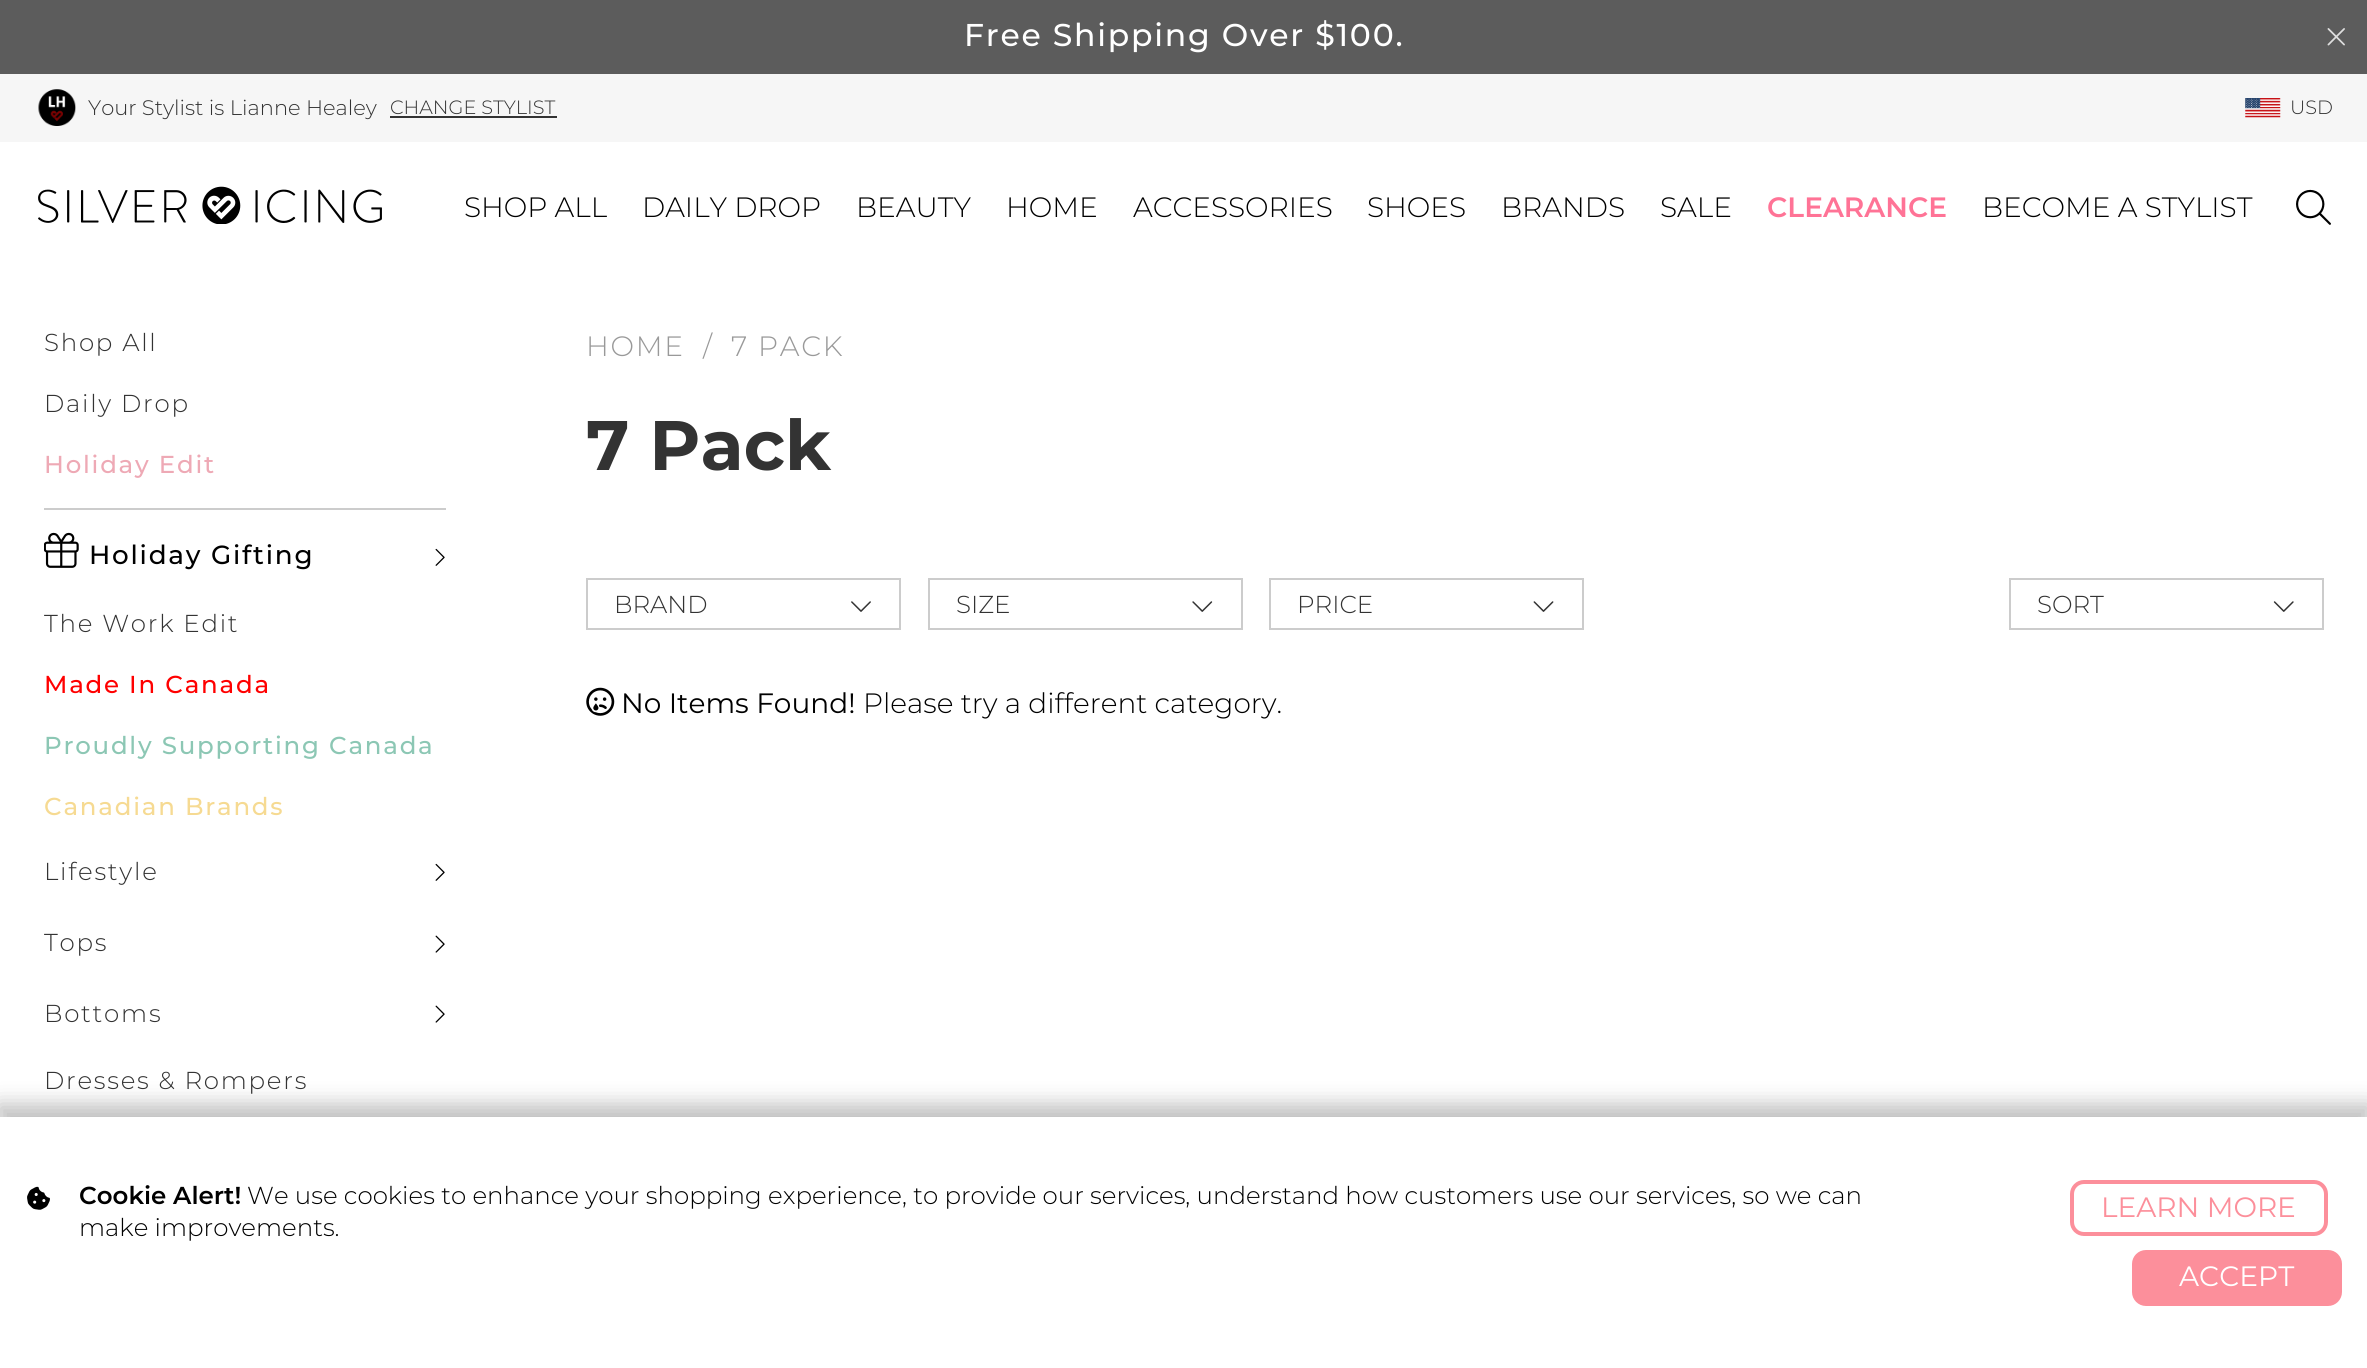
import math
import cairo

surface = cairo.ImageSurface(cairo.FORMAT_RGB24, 2367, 1368)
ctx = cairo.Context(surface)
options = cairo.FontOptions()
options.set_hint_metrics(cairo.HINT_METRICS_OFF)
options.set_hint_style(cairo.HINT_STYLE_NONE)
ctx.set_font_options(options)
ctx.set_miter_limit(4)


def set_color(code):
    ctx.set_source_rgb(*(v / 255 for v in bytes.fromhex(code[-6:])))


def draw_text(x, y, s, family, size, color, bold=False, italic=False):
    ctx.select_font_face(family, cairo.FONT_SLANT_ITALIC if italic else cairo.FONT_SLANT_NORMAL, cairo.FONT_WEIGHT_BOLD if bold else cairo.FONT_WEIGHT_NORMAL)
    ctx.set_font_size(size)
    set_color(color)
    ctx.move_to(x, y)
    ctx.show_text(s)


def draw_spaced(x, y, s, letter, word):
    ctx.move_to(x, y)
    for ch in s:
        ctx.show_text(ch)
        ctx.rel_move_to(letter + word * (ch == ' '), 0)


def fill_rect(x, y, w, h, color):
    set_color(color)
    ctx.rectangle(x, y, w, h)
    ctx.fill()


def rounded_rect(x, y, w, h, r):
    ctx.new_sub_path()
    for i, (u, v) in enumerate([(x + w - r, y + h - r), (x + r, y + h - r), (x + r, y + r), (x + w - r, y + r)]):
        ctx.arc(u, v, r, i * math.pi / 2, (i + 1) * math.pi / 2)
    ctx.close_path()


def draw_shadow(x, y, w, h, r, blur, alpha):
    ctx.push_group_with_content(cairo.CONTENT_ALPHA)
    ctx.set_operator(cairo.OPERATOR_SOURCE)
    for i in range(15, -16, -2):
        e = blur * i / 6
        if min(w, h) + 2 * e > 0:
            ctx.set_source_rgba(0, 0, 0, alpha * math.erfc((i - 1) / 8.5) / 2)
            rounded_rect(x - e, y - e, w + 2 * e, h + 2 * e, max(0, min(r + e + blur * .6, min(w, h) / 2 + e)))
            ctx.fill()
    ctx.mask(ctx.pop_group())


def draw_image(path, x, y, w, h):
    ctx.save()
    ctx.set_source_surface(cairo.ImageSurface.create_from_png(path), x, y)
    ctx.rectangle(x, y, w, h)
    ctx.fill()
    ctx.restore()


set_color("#ffffff")
ctx.paint()
fill_rect(0, 0, 2367, 74, "#5c5c5c")
ctx.select_font_face("Montserrat Medium")
ctx.set_font_size(31.5)
set_color("#ffffff")
draw_spaced(964, 46, "Free Shipping Over $100.", 1.75, 0)
draw_image("assets/img1.png", 2327, 28, 18, 18)
fill_rect(0, 74, 2367, 68, "#f6f6f6")
draw_image("assets/img2.png", 38, 89, 38, 37)
draw_text(88, 115, "Your Stylist is Lianne Healey", "Montserrat Light", 21, "#333333")
draw_text(390, 114, "CHANGE STYLIST", "Montserrat Light", 19.25, "#333333")
fill_rect(390, 116, 167, 2, "#333333")
draw_image("assets/img3.png", 2245, 98, 36, 20)
draw_text(2290, 114, "USD", "Montserrat Light", 19.25, "#333333")
draw_image("assets/img4.png", 38, 186, 344, 38)
draw_text(464, 217, "SHOP ALL", "Montserrat Light", 28, "#000000")
draw_text(642, 217, "DAILY DROP", "Montserrat Light", 28, "#000000")
draw_text(856, 217, "BEAUTY", "Montserrat Light", 28, "#000000")
draw_text(1006, 217, "HOME", "Montserrat Light", 28, "#000000")
draw_text(1133, 217, "ACCESSORIES", "Montserrat Light", 28, "#000000")
draw_text(1367, 217, "SHOES", "Montserrat Light", 28, "#000000")
draw_text(1501, 217, "BRANDS", "Montserrat Light", 28, "#000000")
draw_text(1660, 217, "SALE", "Montserrat Light", 28, "#000000")
draw_text(1767, 217, "CLEARANCE", "Montserrat SemiBold", 28, "#ff7396")
draw_text(1982, 217, "BECOME A STYLIST", "Montserrat Light", 28, "#000000")
draw_image("assets/img5.png", 2296, 189, 35, 36)
ctx.set_font_size(24.5)
set_color("#333333")
draw_spaced(44, 351, "Shop All", 1.75, 0)
draw_spaced(44, 412, "Daily Drop", 1.75, 0)
ctx.select_font_face("Montserrat Medium")
set_color("#eea9b5")
draw_spaced(44, 473, "Holiday Edit", 1.75, 0)
fill_rect(44, 508, 402, 2, "#cccccc")
draw_image("assets/img6.png", 44, 532, 35, 36)
ctx.set_font_size(26.25)
set_color("#000000")
draw_spaced(89, 564, "Holiday Gifting", 1.75, 0)
draw_image("assets/img7.png", 435, 548, 10, 18)
ctx.select_font_face("Montserrat Light")
ctx.set_font_size(24.5)
set_color("#333333")
draw_spaced(44, 632, "The Work Edit", 1.75, 0)
ctx.select_font_face("Montserrat Medium")
set_color("#ff0000")
draw_spaced(44, 693, "Made In Canada", 1.75, 0)
set_color("#8cc7b4")
draw_spaced(44, 754, "Proudly Supporting Canada", 1.75, 0)
set_color("#f6da92")
draw_spaced(44, 815, "Canadian Brands", 1.75, 0)
ctx.select_font_face("Montserrat Light")
set_color("#333333")
draw_spaced(44, 880, "Lifestyle", 1.75, 0)
draw_image("assets/img7.png", 435, 863, 10, 18)
draw_spaced(44, 951, "Tops", 1.75, 0)
draw_image("assets/img8.png", 435, 935, 10, 18)
draw_spaced(44, 1022, "Bottoms", 1.75, 0)
draw_image("assets/img8.png", 435, 1005, 10, 18)
draw_spaced(44, 1089, "Dresses & Rompers", 1.75, 0)
ctx.set_font_size(28)
set_color("#999999")
draw_spaced(586, 356, "HOME", 1.75, 0)
draw_spaced(703, 356, "/", 1.75, 0)
draw_spaced(731, 356, "7 PACK", 1.75, 0)
draw_text(586, 470, "7 Pack", "Montserrat", 70, "#333333", bold=True)
ctx.rectangle(587, 579, 313, 50)
set_color("#cccccc")
ctx.stroke()
draw_text(614, 613, "BRAND", "Montserrat Light", 24.5, "#333333")
draw_image("assets/img9.png", 851, 601, 20, 11)
ctx.rectangle(929, 579, 313, 50)
set_color("#cccccc")
ctx.stroke()
draw_text(956, 613, "SIZE", "Montserrat Light", 24.5, "#333333")
draw_image("assets/img10.png", 1192, 601, 21, 11)
ctx.rectangle(1270, 579, 313, 50)
set_color("#cccccc")
ctx.stroke()
draw_text(1297, 613, "PRICE", "Montserrat Light", 24.5, "#333333")
draw_image("assets/img11.png", 1533, 601, 21, 11)
ctx.rectangle(2010, 579, 313, 50)
set_color("#cccccc")
ctx.stroke()
draw_text(2037, 613, "SORT", "Montserrat Light", 24.5, "#333333")
draw_image("assets/img12.png", 2273, 601, 21, 11)
draw_image("assets/img13.png", 586, 687, 29, 29)
draw_text(621, 713, "No Items Found!", "Montserrat", 28, "#000000")
draw_text(863, 713, "Please try a different category.", "Montserrat Light", 28, "#000000")
set_color("#000000")
draw_shadow(-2, 1104, 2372, 256, 0, 10.5, 0.25)
fill_rect(0, 1117, 2367, 251, "#ffffff")
draw_image("assets/img14.png", 27, 1186, 23, 24)
draw_text(79, 1204, "Cookie Alert!", "Montserrat SemiBold", 24.5, "#000000")
draw_text(247, 1204, "We use cookies to enhance your shopping experience, to provide our services, understand how customers use our services, so we can", "Montserrat Light", 24.5, "#000000")
draw_text(79, 1236, "make improvements.", "Montserrat Light", 24.5, "#000000")
rounded_rect(2072, 1182, 254, 52, 12)
set_color("#fc8f9b")
ctx.set_line_width(4)
ctx.stroke()
draw_text(2101, 1217, "LEARN MORE", "Montserrat", 28, "#fc8f9b")
rounded_rect(2134, 1252, 206, 52, 12)
ctx.fill_preserve()
ctx.stroke()
draw_text(2179, 1286, "ACCEPT", "Montserrat", 28, "#ffffff")
surface.write_to_png("output.png")
